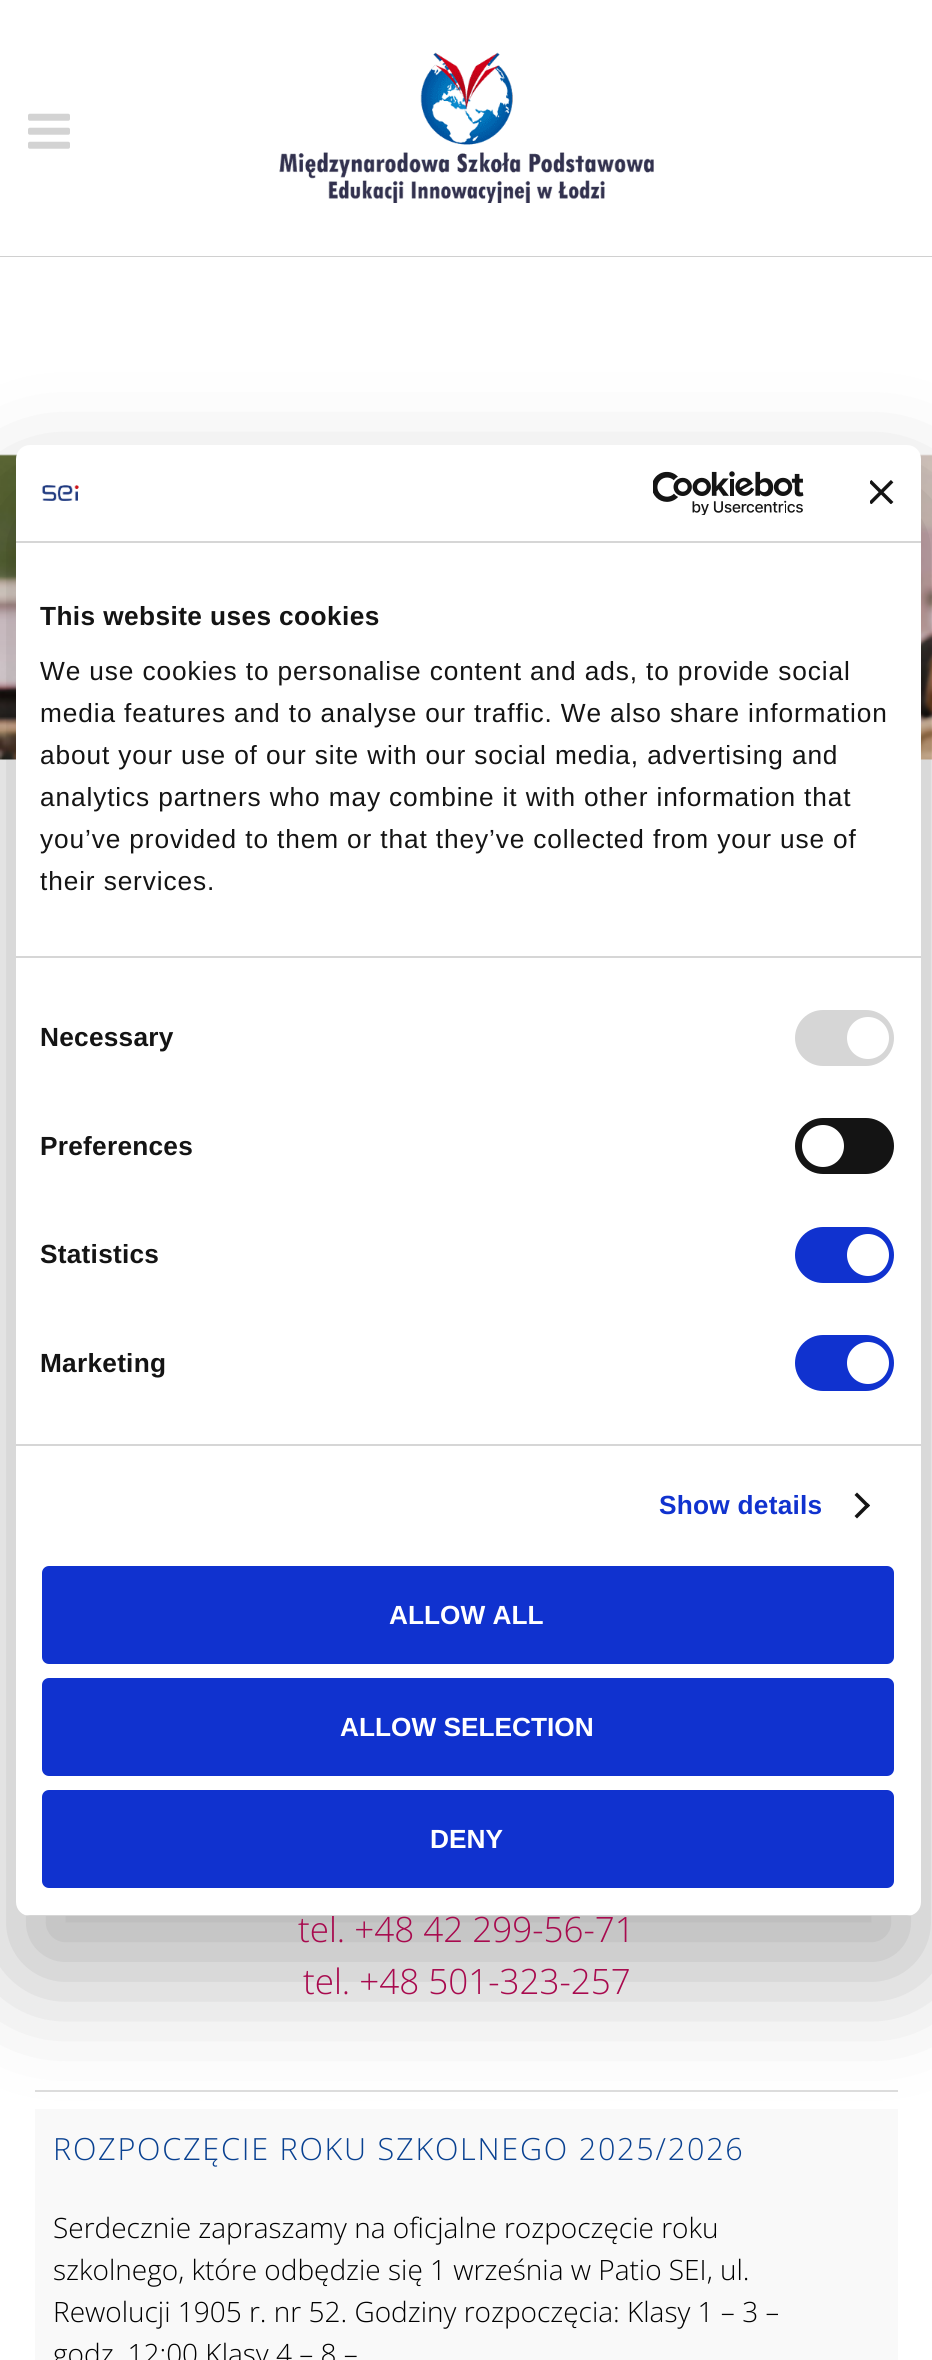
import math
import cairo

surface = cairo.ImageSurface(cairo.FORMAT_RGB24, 932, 2360)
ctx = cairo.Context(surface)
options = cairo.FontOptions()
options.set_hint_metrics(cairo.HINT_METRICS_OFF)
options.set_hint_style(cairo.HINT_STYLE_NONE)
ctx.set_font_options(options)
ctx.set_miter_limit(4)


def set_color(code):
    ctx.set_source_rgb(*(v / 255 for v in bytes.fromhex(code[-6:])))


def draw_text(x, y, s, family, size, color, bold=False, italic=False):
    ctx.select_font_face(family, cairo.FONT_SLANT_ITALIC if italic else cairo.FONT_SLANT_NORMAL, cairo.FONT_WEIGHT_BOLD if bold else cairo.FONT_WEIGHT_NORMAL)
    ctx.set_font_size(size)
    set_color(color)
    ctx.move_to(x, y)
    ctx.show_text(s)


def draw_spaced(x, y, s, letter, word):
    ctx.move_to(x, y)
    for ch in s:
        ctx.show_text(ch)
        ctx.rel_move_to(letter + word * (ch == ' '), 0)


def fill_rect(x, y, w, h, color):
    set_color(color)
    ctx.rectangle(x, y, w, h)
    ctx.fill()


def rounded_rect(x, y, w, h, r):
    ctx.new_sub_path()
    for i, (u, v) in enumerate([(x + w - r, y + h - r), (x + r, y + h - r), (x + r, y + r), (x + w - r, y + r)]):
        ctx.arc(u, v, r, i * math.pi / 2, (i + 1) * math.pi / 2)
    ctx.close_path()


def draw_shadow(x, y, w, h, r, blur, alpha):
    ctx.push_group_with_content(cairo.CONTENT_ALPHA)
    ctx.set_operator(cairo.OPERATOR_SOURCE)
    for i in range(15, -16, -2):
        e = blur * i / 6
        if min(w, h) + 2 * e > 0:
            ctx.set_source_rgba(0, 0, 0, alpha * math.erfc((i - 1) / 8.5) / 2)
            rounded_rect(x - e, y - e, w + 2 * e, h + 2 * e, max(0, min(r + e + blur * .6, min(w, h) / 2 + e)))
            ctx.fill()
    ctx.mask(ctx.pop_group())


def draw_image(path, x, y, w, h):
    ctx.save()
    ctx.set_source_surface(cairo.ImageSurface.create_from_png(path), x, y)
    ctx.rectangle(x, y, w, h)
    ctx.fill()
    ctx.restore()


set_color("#ffffff")
ctx.paint()
draw_image("assets/img6.png", 0, 454, 932, 306)
fill_rect(35, 2090, 863, 2, "#dddddd")
fill_rect(35, 2109, 863, 251, "#f9f9f9")
set_color("#000000")
draw_shadow(16, 501, 905, 1471, 14, 59.5, 0.3)
draw_text(298, 1942, "tel. +48 42 299-56-71", "Open Sans Light", 35, "#a80a4e")
set_color("#ffffff")
rounded_rect(16, 445, 905, 1471, 14)
ctx.fill()
fill_rect(16, 541, 905, 2, "#d6d6d6")
draw_image("assets/img1.png", 41, 485, 38, 16)
draw_image("assets/img2.png", 653, 471, 151, 44)
draw_image("assets/img3.png", 870, 480, 24, 24)
fill_rect(16, 956, 905, 2, "#d6d6d6")
ctx.select_font_face("Liberation Sans", cairo.FONT_SLANT_NORMAL, cairo.FONT_WEIGHT_BOLD)
ctx.set_font_size(26.25)
set_color("#141414")
draw_spaced(40, 625, "This website uses cookies", 0.4, 0)
ctx.select_font_face("Liberation Sans")
draw_spaced(40, 680, "We use cookies to personalise content and ads, to provide social", 0.88, 0)
draw_spaced(40, 722, "media features and to analyse our traffic. We also share information", 0.88, 0)
draw_spaced(40, 764, "about your use of our site with our social media, advertising and", 0.88, 0)
draw_spaced(40, 806, "analytics partners who may combine it with other information that", 0.88, 0)
draw_spaced(40, 848, "you’ve provided to them or that they’ve collected from your use of", 0.88, 0)
draw_spaced(40, 890, "their services.", 0.88, 0)
fill_rect(16, 1444, 905, 2, "#d6d6d6")
ctx.select_font_face("Liberation Sans", cairo.FONT_SLANT_NORMAL, cairo.FONT_WEIGHT_BOLD)
set_color("#141414")
draw_spaced(40, 1046, "Necessary", 0.25, 0)
set_color("#d6d6d6")
rounded_rect(795, 1010, 99, 56, 28)
ctx.fill()
set_color("#ffffff")
ctx.arc(868, 1038, 21, 0, 2 * math.pi)
ctx.fill()
set_color("#141414")
draw_spaced(40, 1155, "Preferences", 0.25, 0)
rounded_rect(795, 1118, 99, 56, 28)
ctx.fill()
set_color("#ffffff")
ctx.arc(823, 1146, 21, 0, 2 * math.pi)
ctx.fill()
set_color("#141414")
draw_spaced(40, 1263, "Statistics", 0.25, 0)
set_color("#1032cf")
rounded_rect(795, 1227, 99, 56, 28)
ctx.fill()
set_color("#ffffff")
ctx.arc(868, 1255, 21, 0, 2 * math.pi)
ctx.fill()
set_color("#141414")
draw_spaced(40, 1372, "Marketing", 0.25, 0)
set_color("#1032cf")
rounded_rect(795, 1335, 99, 56, 28)
ctx.fill()
set_color("#ffffff")
ctx.arc(868, 1363, 21, 0, 2 * math.pi)
ctx.fill()
set_color("#1032cf")
draw_spaced(659, 1514, "Show details", 0.25, 0)
set_color("#141414")
ctx.new_path()
ctx.move_to(857, 1492.5)
ctx.line_to(870, 1505.5)
ctx.line_to(867.5, 1508)
ctx.line_to(854.5, 1495)
ctx.close_path()
ctx.fill()
ctx.new_path()
ctx.move_to(867.5, 1503)
ctx.line_to(870, 1505.5)
ctx.line_to(857, 1518.5)
ctx.line_to(854.5, 1516)
ctx.close_path()
ctx.fill()
ctx.save()
rounded_rect(16, 445, 905, 1471, 14)
ctx.clip()
fill_rect(25, 1915, 887, 1, "#d6d6d6")
ctx.restore()
set_color("#1032cf")
rounded_rect(44, 1568, 848, 94, 5)
ctx.fill_preserve()
ctx.set_line_width(4)
ctx.stroke()
draw_text(389, 1624, "ALLOW ALL", "Liberation Sans", 26.25, "#ffffff", bold=True)
set_color("#1032cf")
rounded_rect(44, 1680, 848, 94, 5)
ctx.fill_preserve()
ctx.stroke()
draw_text(340, 1736, "ALLOW SELECTION", "Liberation Sans", 26.25, "#ffffff", bold=True)
set_color("#1032cf")
rounded_rect(44, 1792, 848, 94, 5)
ctx.fill_preserve()
ctx.stroke()
draw_text(430, 1848, "DENY", "Liberation Sans", 26.25, "#ffffff", bold=True)
fill_rect(0, 256, 932, 1, "#d0d0d0")
draw_image("assets/img4.png", 28, 113, 42, 36)
draw_image("assets/img5.png", 279, 52, 375, 151)
draw_text(303, 1994, "tel. +48 501-323-257", "Open Sans Light", 35, "#a80a4e")
ctx.set_font_size(30.6)
set_color("#094191")
draw_spaced(53, 2160, "ROZPOCZĘCIE ROKU SZKOLNEGO 2025/2026", 1.75, 0)
draw_text(53, 2238, "Serdecznie zapraszamy na oficjalne rozpoczęcie roku", "Open Sans Light", 28, "#000000")
draw_text(53, 2280, "szkolnego, które odbędzie się 1 września w Patio SEI, ul.", "Open Sans Light", 28, "#000000")
draw_text(53, 2322, "Rewolucji 1905 r. nr 52. Godziny rozpoczęcia: Klasy 1 – 3 –", "Open Sans Light", 28, "#000000")
draw_text(53, 2364, "godz. 12:00 Klasy 4 – 8 –", "Open Sans Light", 28, "#000000")
surface.write_to_png("output.png")
